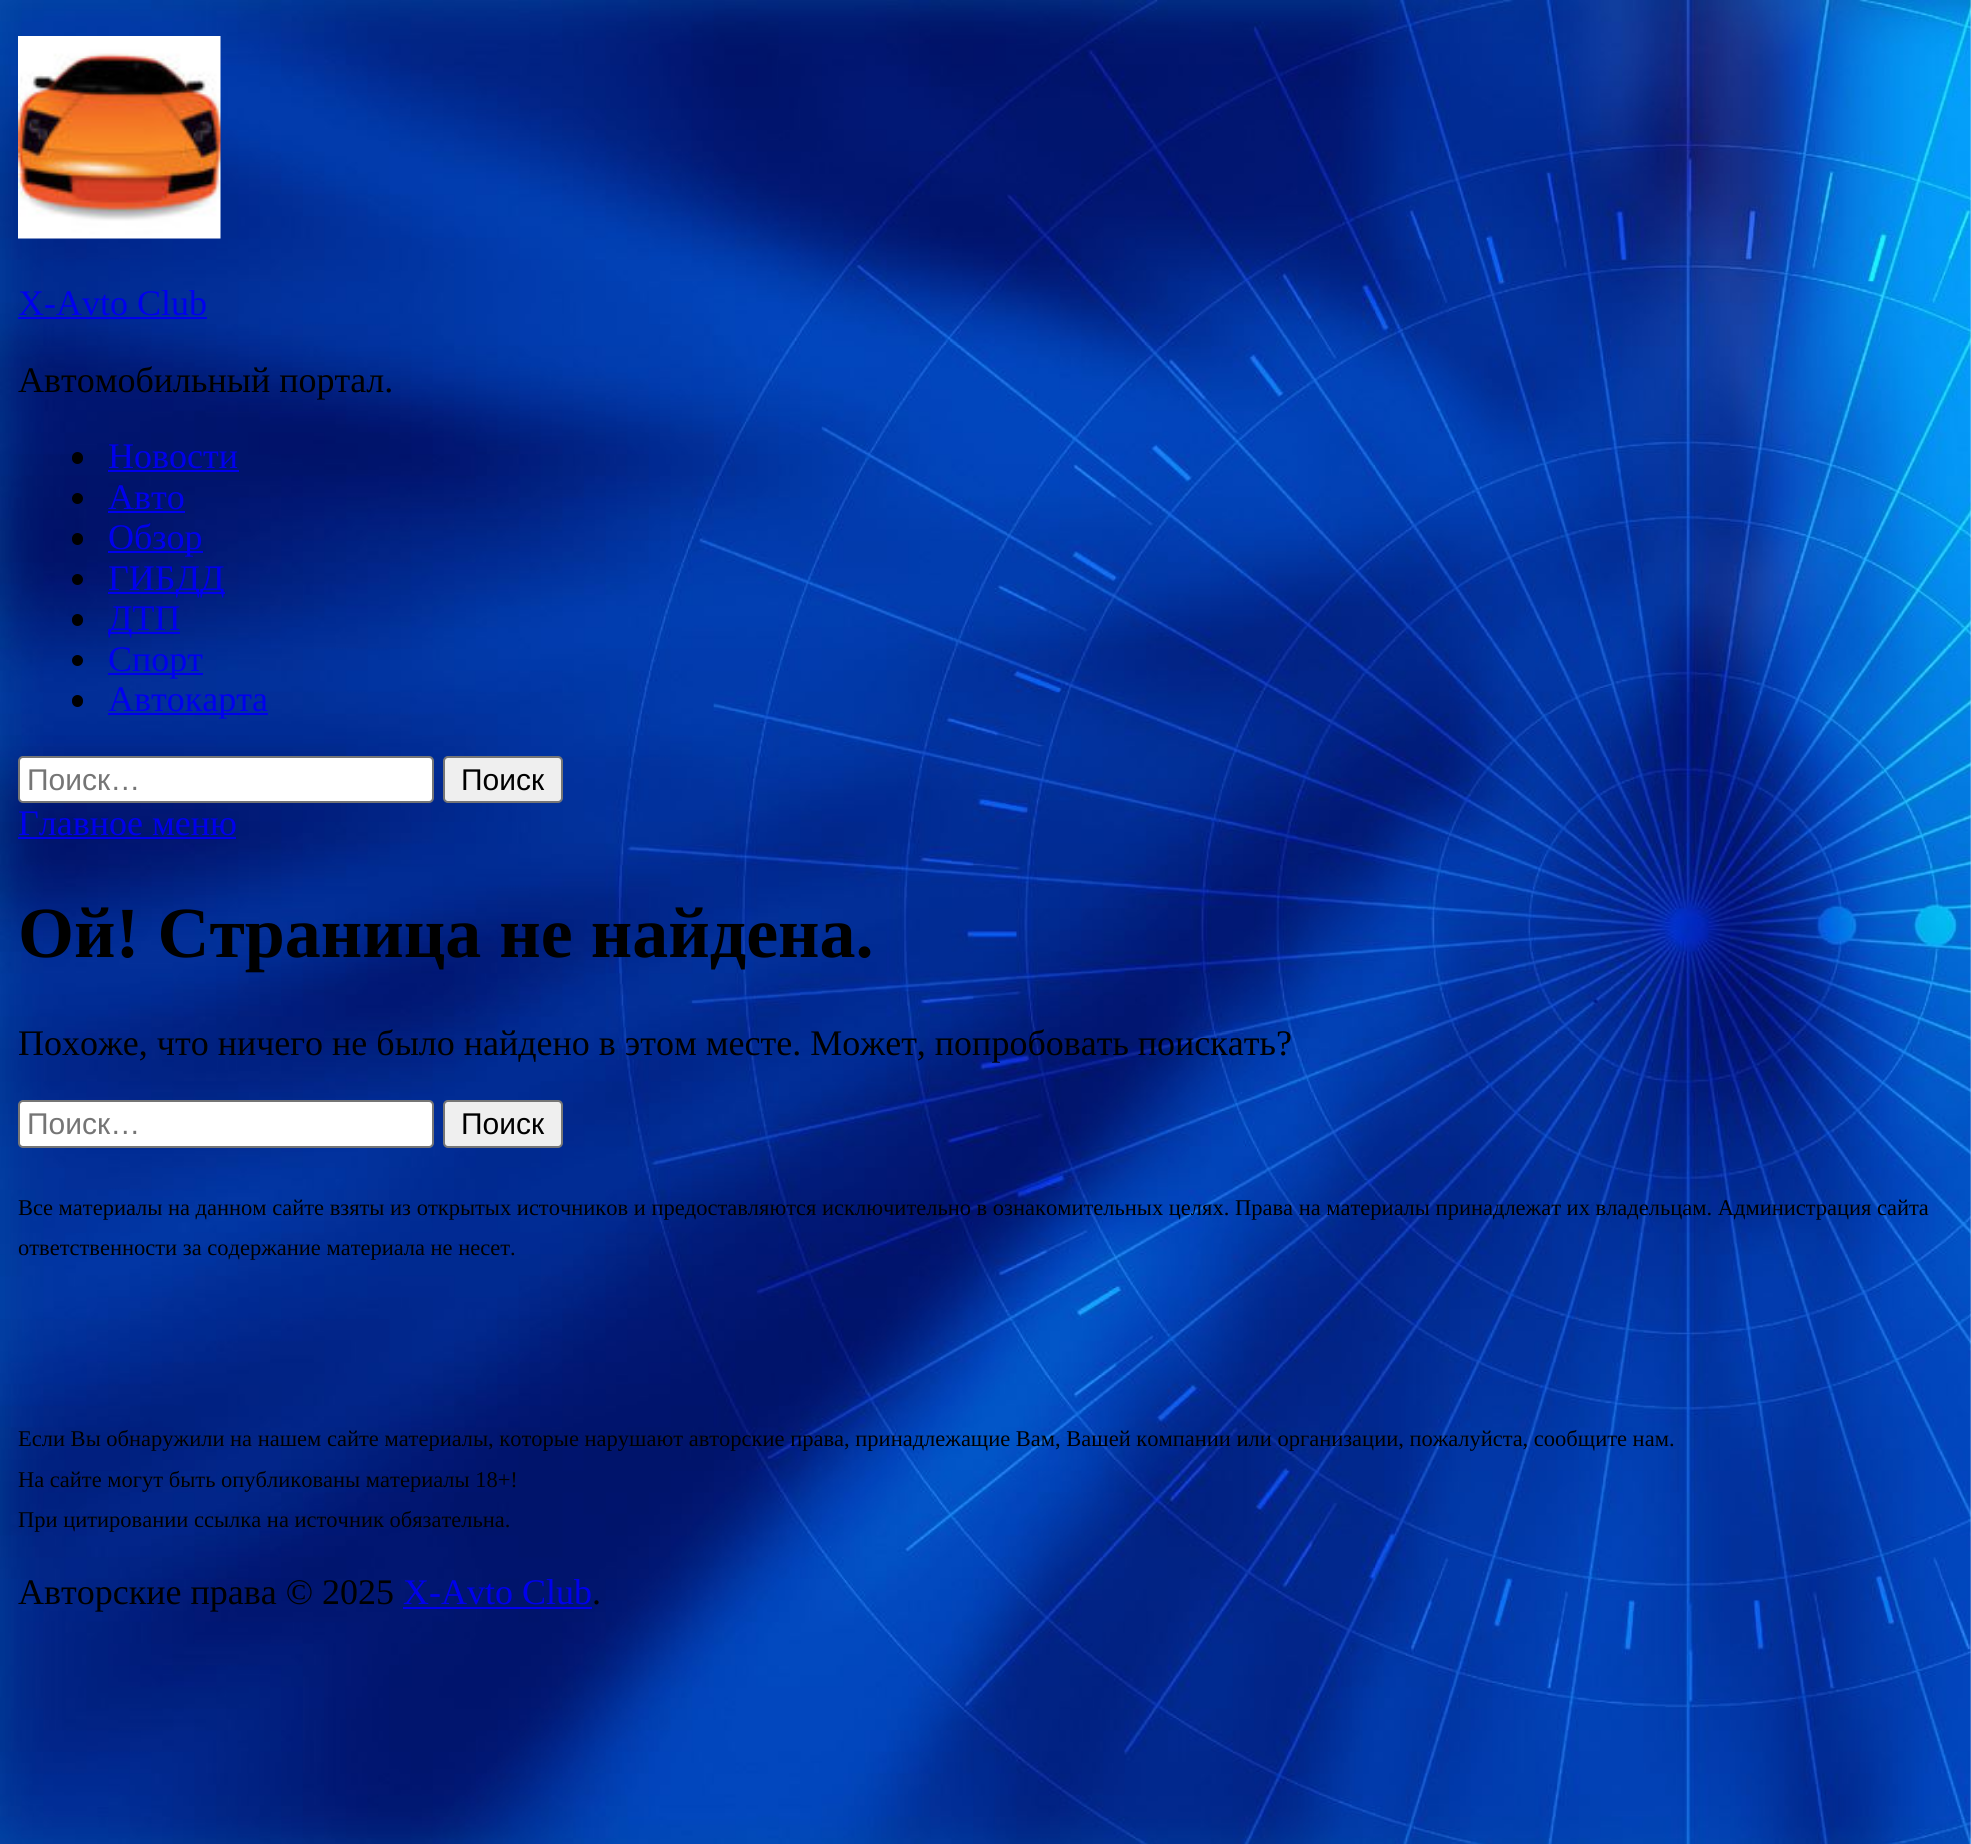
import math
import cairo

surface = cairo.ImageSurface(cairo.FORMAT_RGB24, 1971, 1844)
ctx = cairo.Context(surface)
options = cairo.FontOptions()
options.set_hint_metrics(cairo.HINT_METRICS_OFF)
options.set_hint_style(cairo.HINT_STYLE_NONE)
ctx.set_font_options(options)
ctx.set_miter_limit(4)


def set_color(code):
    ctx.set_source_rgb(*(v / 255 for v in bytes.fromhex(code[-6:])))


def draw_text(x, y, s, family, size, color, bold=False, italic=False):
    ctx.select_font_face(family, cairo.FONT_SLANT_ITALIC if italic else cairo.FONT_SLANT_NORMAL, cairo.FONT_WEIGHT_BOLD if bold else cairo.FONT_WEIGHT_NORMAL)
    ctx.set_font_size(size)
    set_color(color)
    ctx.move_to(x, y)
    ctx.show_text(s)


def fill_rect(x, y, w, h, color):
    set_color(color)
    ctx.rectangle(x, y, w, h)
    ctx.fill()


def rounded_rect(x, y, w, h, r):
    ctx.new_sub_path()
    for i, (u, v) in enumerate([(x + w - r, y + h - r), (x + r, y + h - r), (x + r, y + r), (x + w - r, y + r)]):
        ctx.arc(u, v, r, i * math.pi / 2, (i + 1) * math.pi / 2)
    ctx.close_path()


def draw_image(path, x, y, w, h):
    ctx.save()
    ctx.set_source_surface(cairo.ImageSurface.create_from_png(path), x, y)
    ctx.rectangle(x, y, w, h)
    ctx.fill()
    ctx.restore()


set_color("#ffffff")
ctx.paint()
draw_image("assets/img1.png", 0, 0, 1971, 1844)
draw_image("assets/img2.png", 18, 36, 203, 203)
draw_text(18, 315, "X-Avto Club", "Liberation Serif", 36, "#0000ee")
fill_rect(18, 317, 189, 2, "#0000ee")
draw_text(18, 392, "Автомобильный портал.", "Liberation Serif", 36, "#000000")
rounded_rect(72, 452, 11, 12, 5.5)
ctx.fill()
draw_text(108, 468, "Новости", "Liberation Serif", 36, "#0000ee")
fill_rect(108, 470, 131, 2, "#0000ee")
set_color("#000000")
ctx.new_path()
ctx.arc(77.5, 498.5, 5.5, 0, 2 * math.pi)
ctx.fill()
draw_text(108, 509, "Авто", "Liberation Serif", 36, "#0000ee")
fill_rect(108, 511, 77, 2, "#0000ee")
set_color("#000000")
rounded_rect(72, 533, 11, 12, 5.5)
ctx.fill()
fill_rect(108, 551, 95, 2, "#0000ee")
draw_text(108, 549, "Обзор", "Liberation Serif", 36, "#0000ee")
set_color("#000000")
ctx.new_path()
ctx.arc(77.5, 579.5, 5.5, 0, 2 * math.pi)
ctx.fill()
fill_rect(108, 592, 117, 2, "#0000ee")
draw_text(108, 590, "ГИБДД", "Liberation Serif", 36, "#0000ee")
set_color("#000000")
rounded_rect(72, 614, 11, 12, 5.5)
ctx.fill()
fill_rect(108, 632, 72, 2, "#0000ee")
draw_text(108, 630, "ДТП", "Liberation Serif", 36, "#0000ee")
set_color("#000000")
ctx.new_path()
ctx.arc(77.5, 660.5, 5.5, 0, 2 * math.pi)
ctx.fill()
fill_rect(108, 673, 95, 2, "#0000ee")
draw_text(108, 671, "Спорт", "Liberation Serif", 36, "#0000ee")
set_color("#000000")
rounded_rect(72, 695, 11, 12, 5.5)
ctx.fill()
fill_rect(108, 713, 160, 2, "#0000ee")
draw_text(108, 711, "Автокарта", "Liberation Serif", 36, "#0000ee")
set_color("#ffffff")
rounded_rect(19, 757, 414, 45, 4)
ctx.fill_preserve()
set_color("#767676")
ctx.stroke()
draw_text(27, 790, "Поиск…", "Liberation Sans", 30, "#757575")
set_color("#efefef")
rounded_rect(444, 757, 118, 45, 4)
ctx.fill_preserve()
set_color("#767676")
ctx.stroke()
draw_text(461, 790, "Поиск", "Liberation Sans", 30, "#000000")
draw_text(18, 835, "Главное меню", "Liberation Serif", 36, "#0000ee")
fill_rect(18, 837, 218, 2, "#0000ee")
draw_text(18, 957, "Ой! Страница не найдена.", "Liberation Serif", 72, "#000000", bold=True)
draw_text(18, 1055, "Похоже, что ничего не было найдено в этом месте. Может, попробовать поискать?", "Liberation Serif", 36, "#000000")
set_color("#ffffff")
rounded_rect(19, 1101, 414, 46, 4)
ctx.fill_preserve()
set_color("#767676")
ctx.stroke()
draw_text(27, 1134, "Поиск…", "Liberation Sans", 30, "#757575")
set_color("#efefef")
rounded_rect(444, 1101, 118, 46, 4)
ctx.fill_preserve()
set_color("#767676")
ctx.stroke()
draw_text(461, 1134, "Поиск", "Liberation Sans", 30, "#000000")
draw_text(18, 1215, "Все материалы на данном сайте взяты из открытых источников и предоставляются исключительно в ознакомительных целях. Права на материалы принадлежат их владельцам. Администрация сайта", "Liberation Serif", 22.5, "#000000")
draw_text(18, 1255, "ответственности за содержание материала не несет.", "Liberation Serif", 22.5, "#000000")
draw_text(18, 1446, "Если Вы обнаружили на нашем сайте материалы, которые нарушают авторские права, принадлежащие Вам, Вашей компании или организации, пожалуйста, сообщите нам.", "Liberation Serif", 22.5, "#000000")
draw_text(18, 1487, "На сайте могут быть опубликованы материалы 18+!", "Liberation Serif", 22.5, "#000000")
draw_text(18, 1527, "При цитировании ссылка на источник обязательна.", "Liberation Serif", 22.5, "#000000")
draw_text(18, 1604, "Авторские права © 2025", "Liberation Serif", 36, "#000000")
draw_text(403, 1604, "X-Avto Club", "Liberation Serif", 36, "#0000ee")
fill_rect(403, 1607, 189, 2, "#0000ee")
draw_text(592, 1604, ".", "Liberation Serif", 36, "#000000")
surface.write_to_png("output.png")
